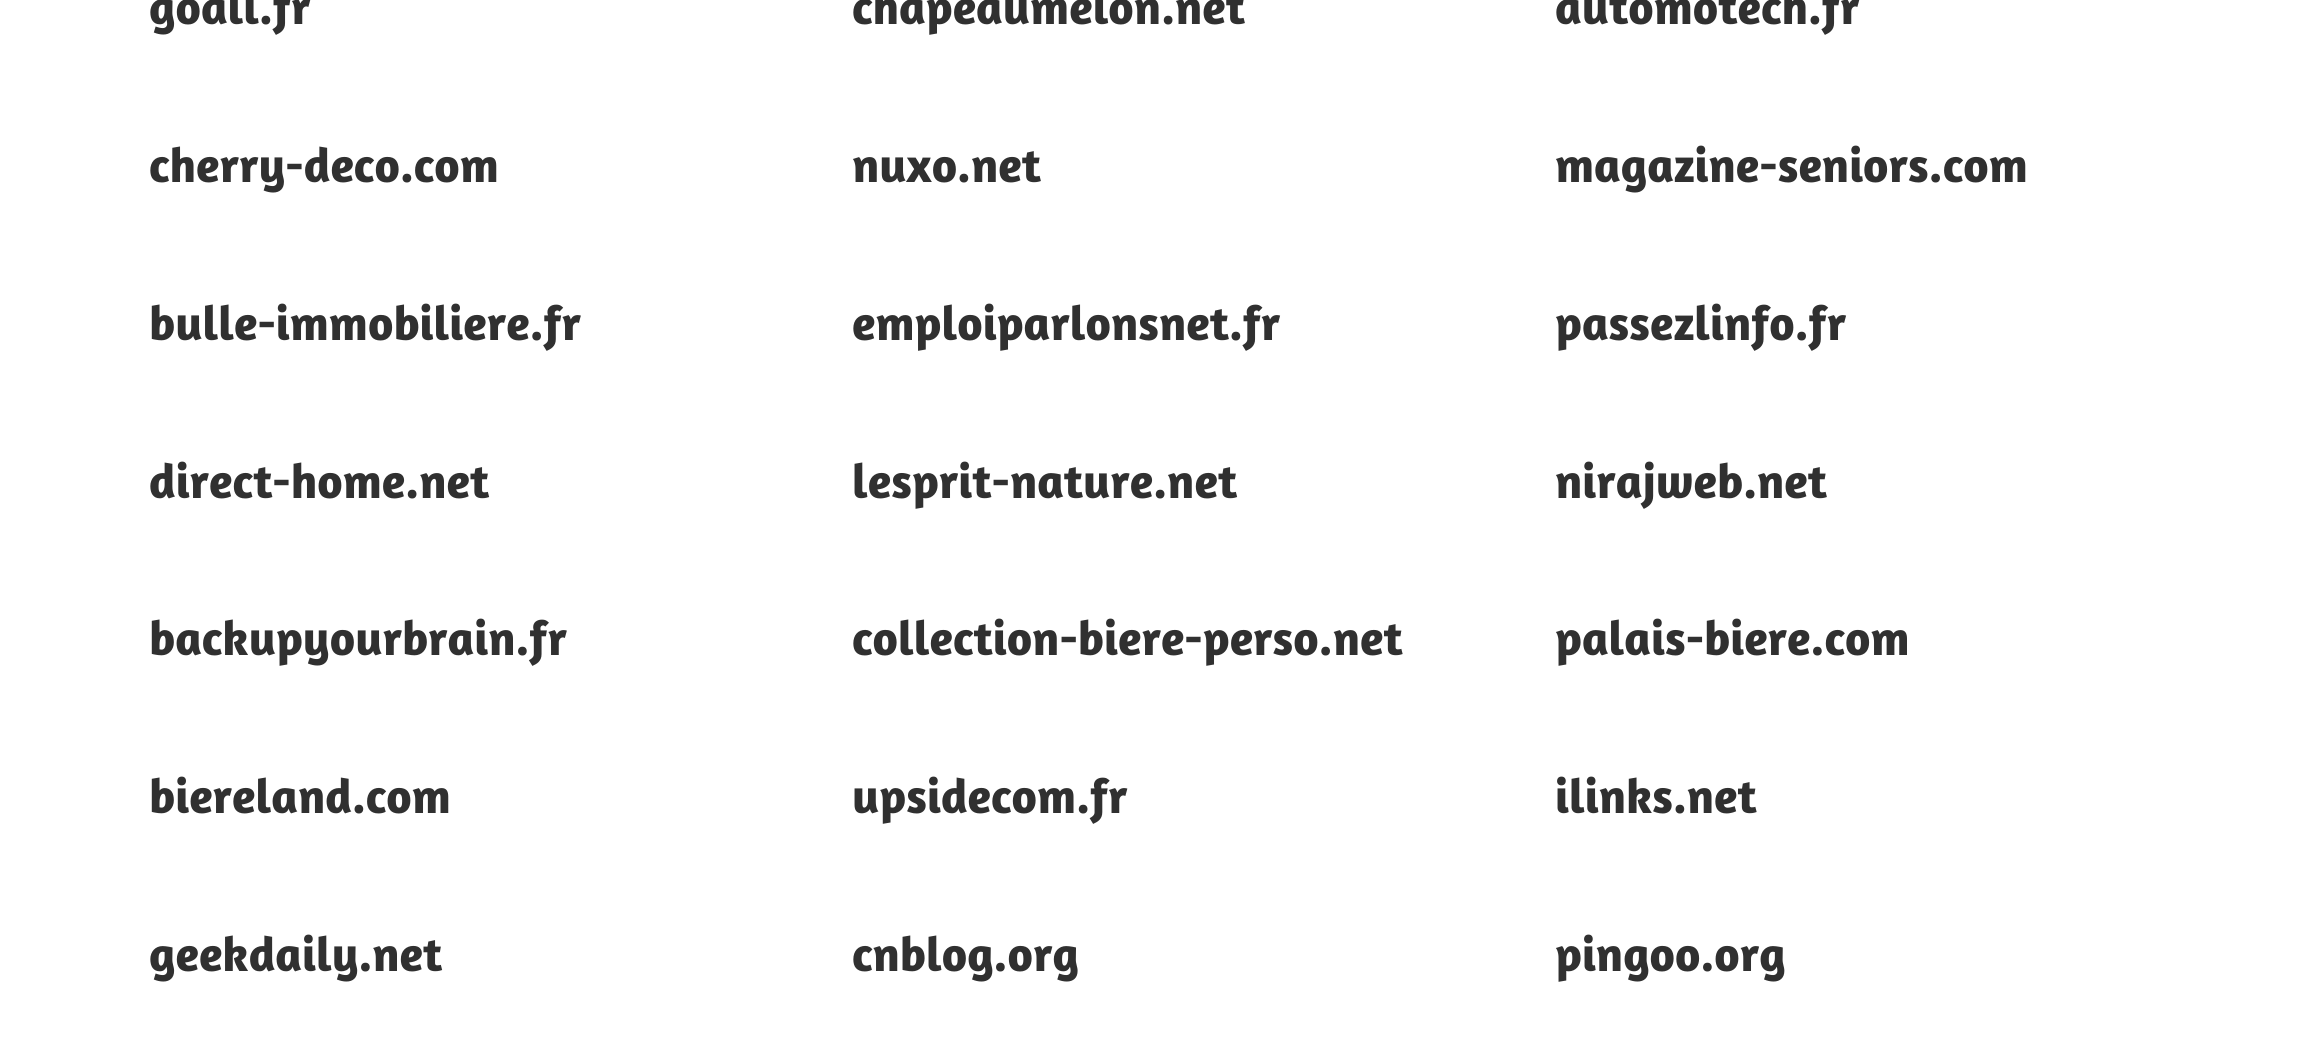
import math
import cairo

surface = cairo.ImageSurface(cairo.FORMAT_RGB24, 2322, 1049)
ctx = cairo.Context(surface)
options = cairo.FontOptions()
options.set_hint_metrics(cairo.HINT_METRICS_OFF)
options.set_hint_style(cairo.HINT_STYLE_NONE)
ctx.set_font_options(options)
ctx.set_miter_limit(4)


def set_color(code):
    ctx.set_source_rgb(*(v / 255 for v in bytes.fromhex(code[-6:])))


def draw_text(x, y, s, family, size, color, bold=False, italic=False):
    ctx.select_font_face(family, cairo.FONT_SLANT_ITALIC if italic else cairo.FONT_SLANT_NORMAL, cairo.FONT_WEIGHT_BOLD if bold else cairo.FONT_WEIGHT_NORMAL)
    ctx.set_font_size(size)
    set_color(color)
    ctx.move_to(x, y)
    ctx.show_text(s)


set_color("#ffffff")
ctx.paint()
draw_text(149, 24, "goall.fr", "Amaranth", 49, "#303030", bold=True)
draw_text(852, 24, "chapeaumelon.net", "Amaranth", 49, "#303030", bold=True)
draw_text(1555, 24, "automotech.fr", "Amaranth", 49, "#303030", bold=True)
draw_text(149, 182, "cherry-deco.com", "Amaranth", 49, "#303030", bold=True)
draw_text(852, 182, "nuxo.net", "Amaranth", 49, "#303030", bold=True)
draw_text(1555, 182, "magazine-seniors.com", "Amaranth", 49, "#303030", bold=True)
draw_text(149, 340, "bulle-immobiliere.fr", "Amaranth", 49, "#303030", bold=True)
draw_text(852, 340, "emploiparlonsnet.fr", "Amaranth", 49, "#303030", bold=True)
draw_text(1555, 340, "passezlinfo.fr", "Amaranth", 49, "#303030", bold=True)
draw_text(149, 498, "direct-home.net", "Amaranth", 49, "#303030", bold=True)
draw_text(852, 498, "lesprit-nature.net", "Amaranth", 49, "#303030", bold=True)
draw_text(1555, 498, "nirajweb.net", "Amaranth", 49, "#303030", bold=True)
draw_text(149, 655, "backupyourbrain.fr", "Amaranth", 49, "#303030", bold=True)
draw_text(852, 655, "collection-biere-perso.net", "Amaranth", 49, "#303030", bold=True)
draw_text(1555, 655, "palais-biere.com", "Amaranth", 49, "#303030", bold=True)
draw_text(149, 813, "biereland.com", "Amaranth", 49, "#303030", bold=True)
draw_text(852, 813, "upsidecom.fr", "Amaranth", 49, "#303030", bold=True)
draw_text(1555, 813, "ilinks.net", "Amaranth", 49, "#303030", bold=True)
draw_text(149, 971, "geekdaily.net", "Amaranth", 49, "#303030", bold=True)
draw_text(852, 971, "cnblog.org", "Amaranth", 49, "#303030", bold=True)
draw_text(1555, 971, "pingoo.org", "Amaranth", 49, "#303030", bold=True)
surface.write_to_png("output.png")
